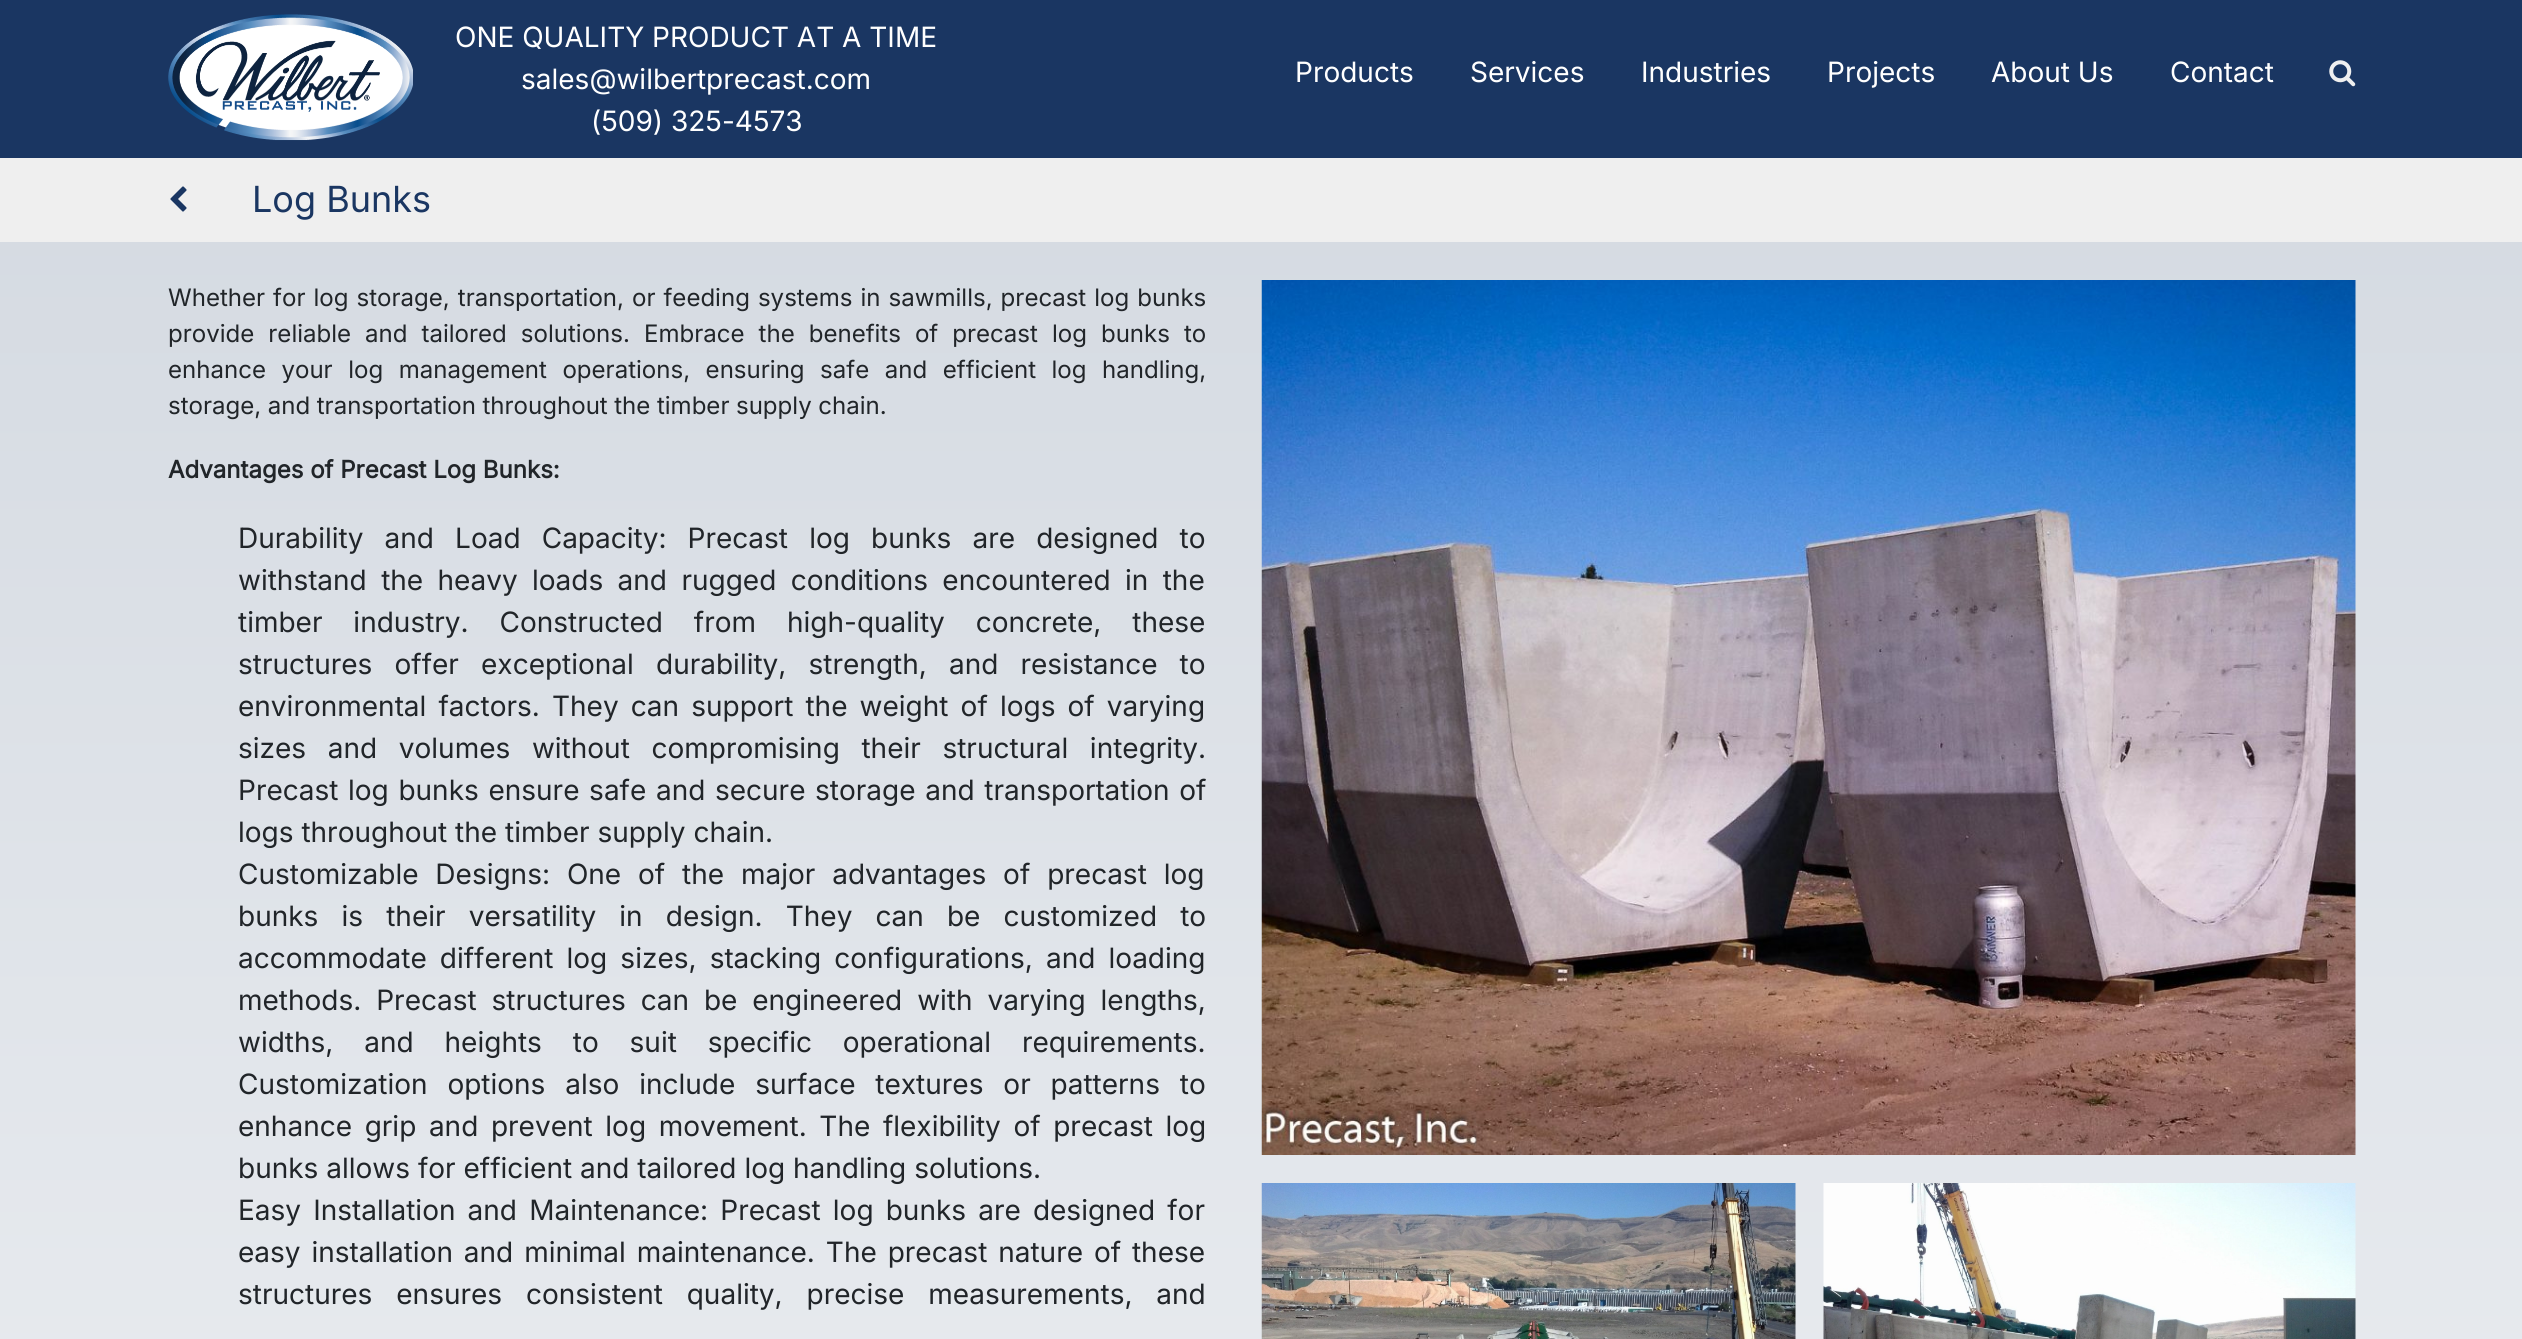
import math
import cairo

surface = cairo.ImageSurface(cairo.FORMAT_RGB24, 2522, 1339)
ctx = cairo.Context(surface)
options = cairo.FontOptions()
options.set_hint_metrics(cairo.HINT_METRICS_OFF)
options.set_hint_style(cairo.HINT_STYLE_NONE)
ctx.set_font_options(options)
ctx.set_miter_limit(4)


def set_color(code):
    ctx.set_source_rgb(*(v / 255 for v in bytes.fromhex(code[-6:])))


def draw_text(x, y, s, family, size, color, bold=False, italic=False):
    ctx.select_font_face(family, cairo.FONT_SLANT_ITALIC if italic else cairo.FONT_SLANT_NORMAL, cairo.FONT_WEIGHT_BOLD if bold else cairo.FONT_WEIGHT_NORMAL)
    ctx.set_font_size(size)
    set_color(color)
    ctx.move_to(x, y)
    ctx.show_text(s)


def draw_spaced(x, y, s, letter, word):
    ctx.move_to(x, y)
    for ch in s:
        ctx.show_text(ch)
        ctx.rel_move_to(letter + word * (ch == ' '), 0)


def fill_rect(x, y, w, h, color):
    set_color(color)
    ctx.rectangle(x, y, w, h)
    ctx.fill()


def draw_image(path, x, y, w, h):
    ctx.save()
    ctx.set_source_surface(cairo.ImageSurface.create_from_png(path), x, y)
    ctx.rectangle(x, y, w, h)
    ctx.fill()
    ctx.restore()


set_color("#ffffff")
ctx.paint()
gradient = cairo.LinearGradient(1262, 0, 1262, 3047)
gradient.add_color_stop_rgba(0, 0.824, 0.847, 0.878, 1)
gradient.add_color_stop_rgba(1, 1, 1, 1, 1)
ctx.set_source(gradient)
ctx.rectangle(0, 242, 2522, 1097)
ctx.fill()
fill_rect(0, 0, 2522, 158, "#1a3662")
draw_image("assets/img1.png", 168, 14, 245, 127)
draw_text(455, 47, "ONE QUALITY PRODUCT AT A TIME", "Inter", 28, "#ffffff")
draw_text(521, 89, "sales@wilbertprecast.com", "Inter", 28, "#ffffff")
draw_text(591, 131, "(509) 325-4573", "Inter", 28, "#ffffff")
draw_text(1295, 82, "Products", "Inter", 28, "#ffffff")
draw_text(1470, 82, "Services", "Inter", 28, "#ffffff")
draw_text(1641, 82, "Industries", "Inter", 28, "#ffffff")
draw_text(1827, 82, "Projects", "Inter", 28, "#ffffff")
draw_text(1991, 82, "About Us", "Inter", 28, "#ffffff")
draw_text(2170, 82, "Contact", "Inter", 28, "#ffffff")
draw_image("assets/img2.png", 2329, 60, 27, 27)
fill_rect(0, 158, 2522, 84, "#efefef")
draw_image("assets/img3.png", 170, 186, 17, 26)
draw_text(252, 212, "Log Bunks", "Inter", 36, "#1a3662")
ctx.set_font_size(24.05)
set_color("#212529")
draw_spaced(168, 306, "Whether for log storage, transportation, or feeding systems in sawmills, precast log bunks", 0, 1.25)
draw_spaced(168, 342, "provide reliable and tailored solutions. Embrace the benefits of precast log bunks to", 0, 7.25)
draw_spaced(168, 378, "enhance your log management operations, ensuring safe and efficient log handling,", 0, 8.75)
draw_spaced(168, 414, "storage, and transportation throughout the timber supply chain.", 0, -0.25)
draw_text(168, 478, "Advantages of Precast Log Bunks:", "Inter", 24.05, "#212529", bold=True)
ctx.select_font_face("Inter")
ctx.set_font_size(28)
draw_spaced(238, 548, "Durability and Load Capacity: Precast log bunks are designed to", 0, 13.25)
draw_spaced(238, 590, "withstand the heavy loads and rugged conditions encountered in the", 0, 6.5)
draw_spaced(238, 632, "timber industry. Constructed from high-quality concrete, these", 0, 23)
draw_spaced(238, 674, "structures offer exceptional durability, strength, and resistance to", 0, 14.25)
draw_spaced(238, 716, "environmental factors. They can support the weight of logs of varying", 0, 4.25)
draw_spaced(238, 758, "sizes and volumes without compromising their structural integrity.", 0, 13.75)
draw_spaced(238, 800, "Precast log bunks ensure safe and secure storage and transportation of", 0, 1.75)
draw_text(238, 842, "logs throughout the timber supply chain.", "Inter", 28, "#212529")
draw_spaced(238, 884, "Customizable Designs: One of the major advantages of precast log", 0, 9)
draw_spaced(238, 926, "bunks is their versatility in design. They can be customized to", 0, 15.25)
draw_spaced(238, 968, "accommodate different log sizes, stacking configurations, and loading", 0, 5.25)
draw_spaced(238, 1010, "methods. Precast structures can be engineered with varying lengths,", 0, 7)
draw_spaced(238, 1052, "widths, and heights to suit specific operational requirements.", 0, 23)
draw_spaced(238, 1094, "Customization options also include surface textures or patterns to", 0, 12)
draw_spaced(238, 1136, "enhance grip and prevent log movement. The flexibility of precast log", 0, 4.75)
draw_text(238, 1178, "bunks allows for efficient and tailored log handling solutions.", "Inter", 28, "#212529")
draw_spaced(238, 1220, "Easy Installation and Maintenance: Precast log bunks are designed for", 0, 4.25)
draw_spaced(238, 1262, "easy installation and minimal maintenance. The precast nature of these", 0, 3)
draw_spaced(238, 1304, "structures ensures consistent quality, precise measurements, and", 0, 16)
draw_image("assets/img4.png", 1261, 280, 1095, 875)
draw_image("assets/img5.png", 1261, 1183, 535, 156)
draw_image("assets/img6.png", 1823, 1183, 533, 156)
surface.write_to_png("output.png")
